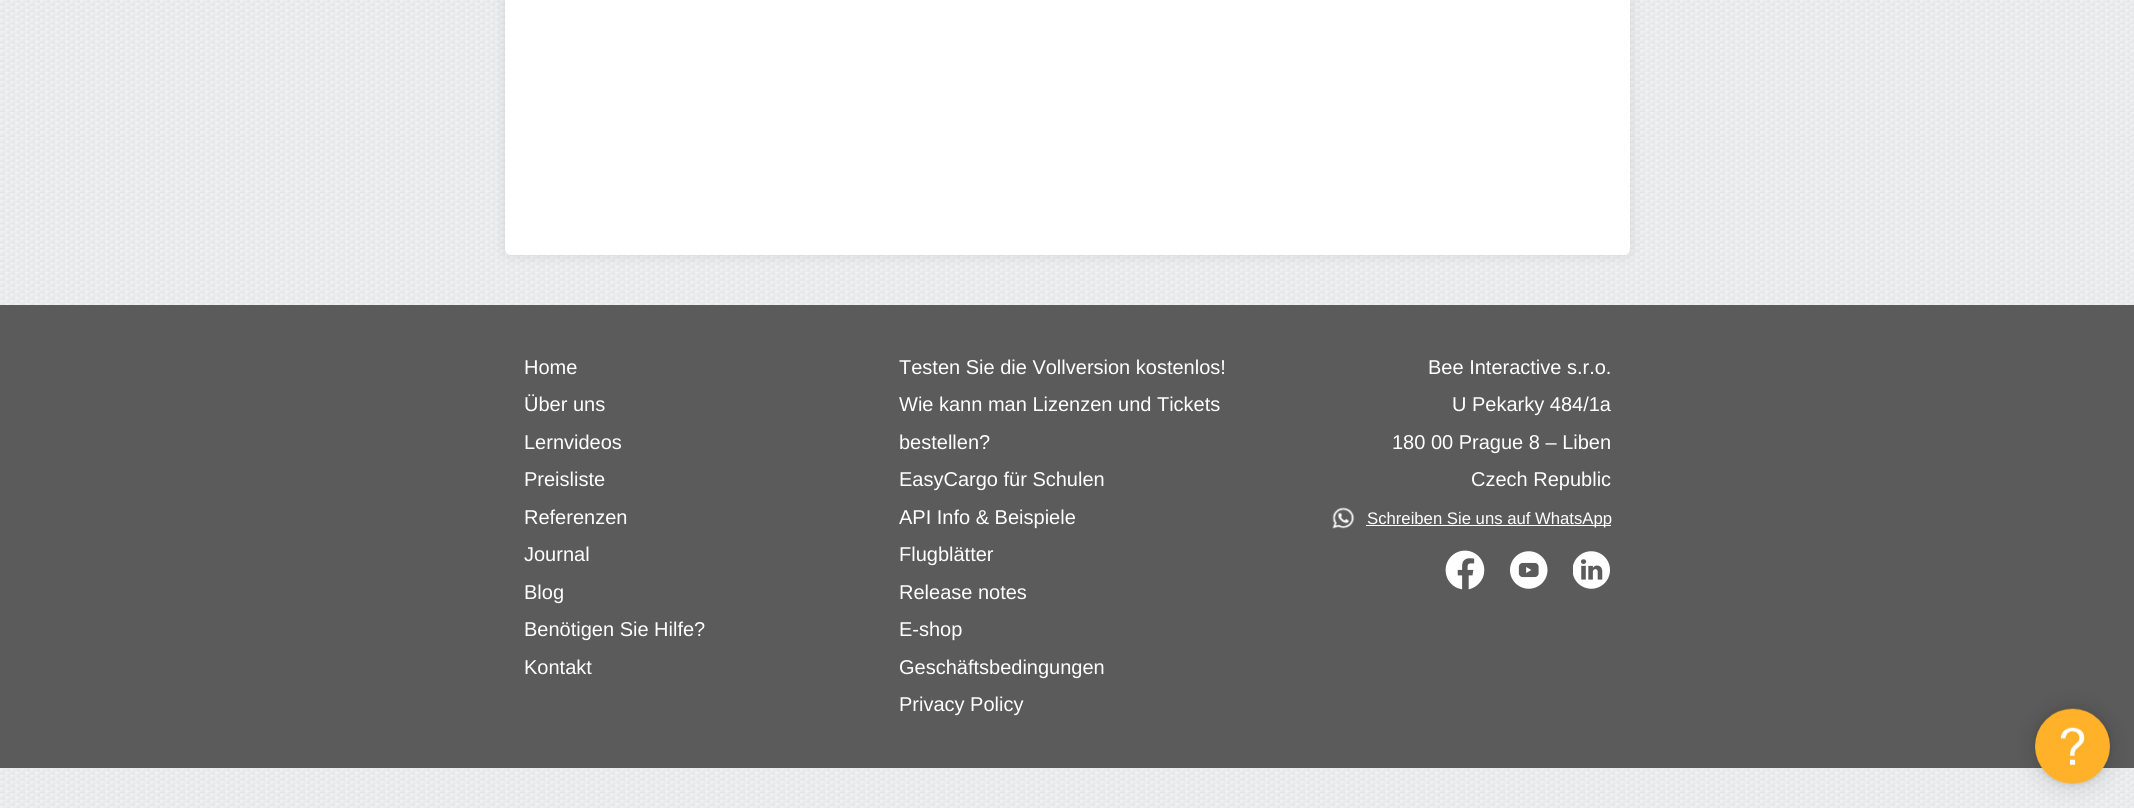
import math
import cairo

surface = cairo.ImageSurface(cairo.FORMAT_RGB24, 2134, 808)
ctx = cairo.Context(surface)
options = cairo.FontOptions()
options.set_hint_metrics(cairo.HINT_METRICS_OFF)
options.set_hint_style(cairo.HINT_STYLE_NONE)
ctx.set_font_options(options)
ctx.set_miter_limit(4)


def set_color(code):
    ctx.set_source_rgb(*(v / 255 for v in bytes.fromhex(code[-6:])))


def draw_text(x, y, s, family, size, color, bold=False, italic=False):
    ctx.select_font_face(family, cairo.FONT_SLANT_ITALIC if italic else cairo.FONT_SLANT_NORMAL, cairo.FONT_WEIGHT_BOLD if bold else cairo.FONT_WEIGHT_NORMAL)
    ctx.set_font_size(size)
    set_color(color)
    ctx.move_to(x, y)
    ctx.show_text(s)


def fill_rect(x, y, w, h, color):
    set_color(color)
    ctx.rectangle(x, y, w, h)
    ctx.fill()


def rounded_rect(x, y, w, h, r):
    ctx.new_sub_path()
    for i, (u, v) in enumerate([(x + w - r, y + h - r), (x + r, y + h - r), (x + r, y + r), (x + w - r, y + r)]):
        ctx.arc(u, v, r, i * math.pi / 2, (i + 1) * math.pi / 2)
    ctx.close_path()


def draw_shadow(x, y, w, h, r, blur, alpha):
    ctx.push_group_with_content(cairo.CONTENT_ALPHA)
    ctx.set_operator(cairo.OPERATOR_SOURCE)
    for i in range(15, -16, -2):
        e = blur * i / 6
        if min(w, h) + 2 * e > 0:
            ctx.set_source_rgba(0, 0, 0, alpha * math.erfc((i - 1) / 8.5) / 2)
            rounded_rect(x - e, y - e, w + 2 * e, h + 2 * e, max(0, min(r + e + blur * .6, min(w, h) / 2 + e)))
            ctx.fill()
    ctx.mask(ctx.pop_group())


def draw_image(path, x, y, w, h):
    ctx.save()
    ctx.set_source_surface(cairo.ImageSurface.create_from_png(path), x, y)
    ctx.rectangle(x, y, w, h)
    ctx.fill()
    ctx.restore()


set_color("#ffffff")
ctx.paint()
draw_image("assets/img1.png", 0, 0, 2134, 808)
set_color("#000000")
draw_shadow(505, -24, 1125, 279, 6, 6, 0.1)
set_color("#ffffff")
rounded_rect(505, -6, 1125, 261, 6)
ctx.fill()
fill_rect(0, 305, 2134, 463, "#5c5b5b")
draw_text(524, 374, "Home", "Liberation Sans", 20, "#ffffff")
draw_text(524, 411, "Über uns", "Liberation Sans", 20, "#ffffff")
draw_text(524, 449, "Lernvideos", "Liberation Sans", 20, "#ffffff")
draw_text(524, 486, "Preisliste", "Liberation Sans", 20, "#ffffff")
draw_text(524, 524, "Referenzen", "Liberation Sans", 20, "#ffffff")
draw_text(524, 561, "Journal", "Liberation Sans", 20, "#ffffff")
draw_text(524, 599, "Blog", "Liberation Sans", 20, "#ffffff")
draw_text(524, 636, "Benötigen Sie Hilfe?", "Liberation Sans", 20, "#ffffff")
draw_text(524, 674, "Kontakt", "Liberation Sans", 20, "#ffffff")
draw_text(899, 374, "Testen Sie die Vollversion kostenlos!", "Liberation Sans", 20, "#ffffff")
draw_text(899, 411, "Wie kann man Lizenzen und Tickets", "Liberation Sans", 20, "#ffffff")
draw_text(899, 449, "bestellen?", "Liberation Sans", 20, "#ffffff")
draw_text(899, 486, "EasyCargo für Schulen", "Liberation Sans", 20, "#ffffff")
draw_text(899, 524, "API Info & Beispiele", "Liberation Sans", 20, "#ffffff")
draw_text(899, 561, "Flugblätter", "Liberation Sans", 20, "#ffffff")
draw_text(899, 599, "Release notes", "Liberation Sans", 20, "#ffffff")
draw_text(899, 636, "E-shop", "Liberation Sans", 20, "#ffffff")
draw_text(899, 674, "Geschäftsbedingungen", "Liberation Sans", 20, "#ffffff")
draw_text(899, 711, "Privacy Policy", "Liberation Sans", 20, "#ffffff")
draw_text(1428, 374, "Bee Interactive s.r.o.", "Liberation Sans", 20, "#ffffff")
draw_text(1452, 411, "U Pekarky 484/1a", "Liberation Sans", 20, "#ffffff")
draw_text(1392, 449, "180 00 Prague 8 – Liben", "Liberation Sans", 20, "#ffffff")
draw_text(1471, 486, "Czech Republic", "Liberation Sans", 20, "#ffffff")
draw_image("assets/img2.png", 1332, 507, 23, 22)
fill_rect(1366, 525, 245, 1, "#ffffff")
draw_text(1367, 524, "Schreiben Sie uns auf WhatsApp", "Liberation Sans", 16.7, "#ffffff")
draw_image("assets/img3.png", 1445, 550, 40, 40)
draw_image("assets/img4.png", 1510, 551, 38, 38)
draw_image("assets/img5.png", 1573, 551, 37, 38)
set_color("#000000")
draw_shadow(2035, 709, 75, 75, 37.5, 12.5, 0.15)
draw_shadow(2035, 709, 75, 75, 37.5, 3, 0.1)
draw_image("assets/img6.png", 2035, 708, 75, 76)
surface.write_to_png("output.png")
